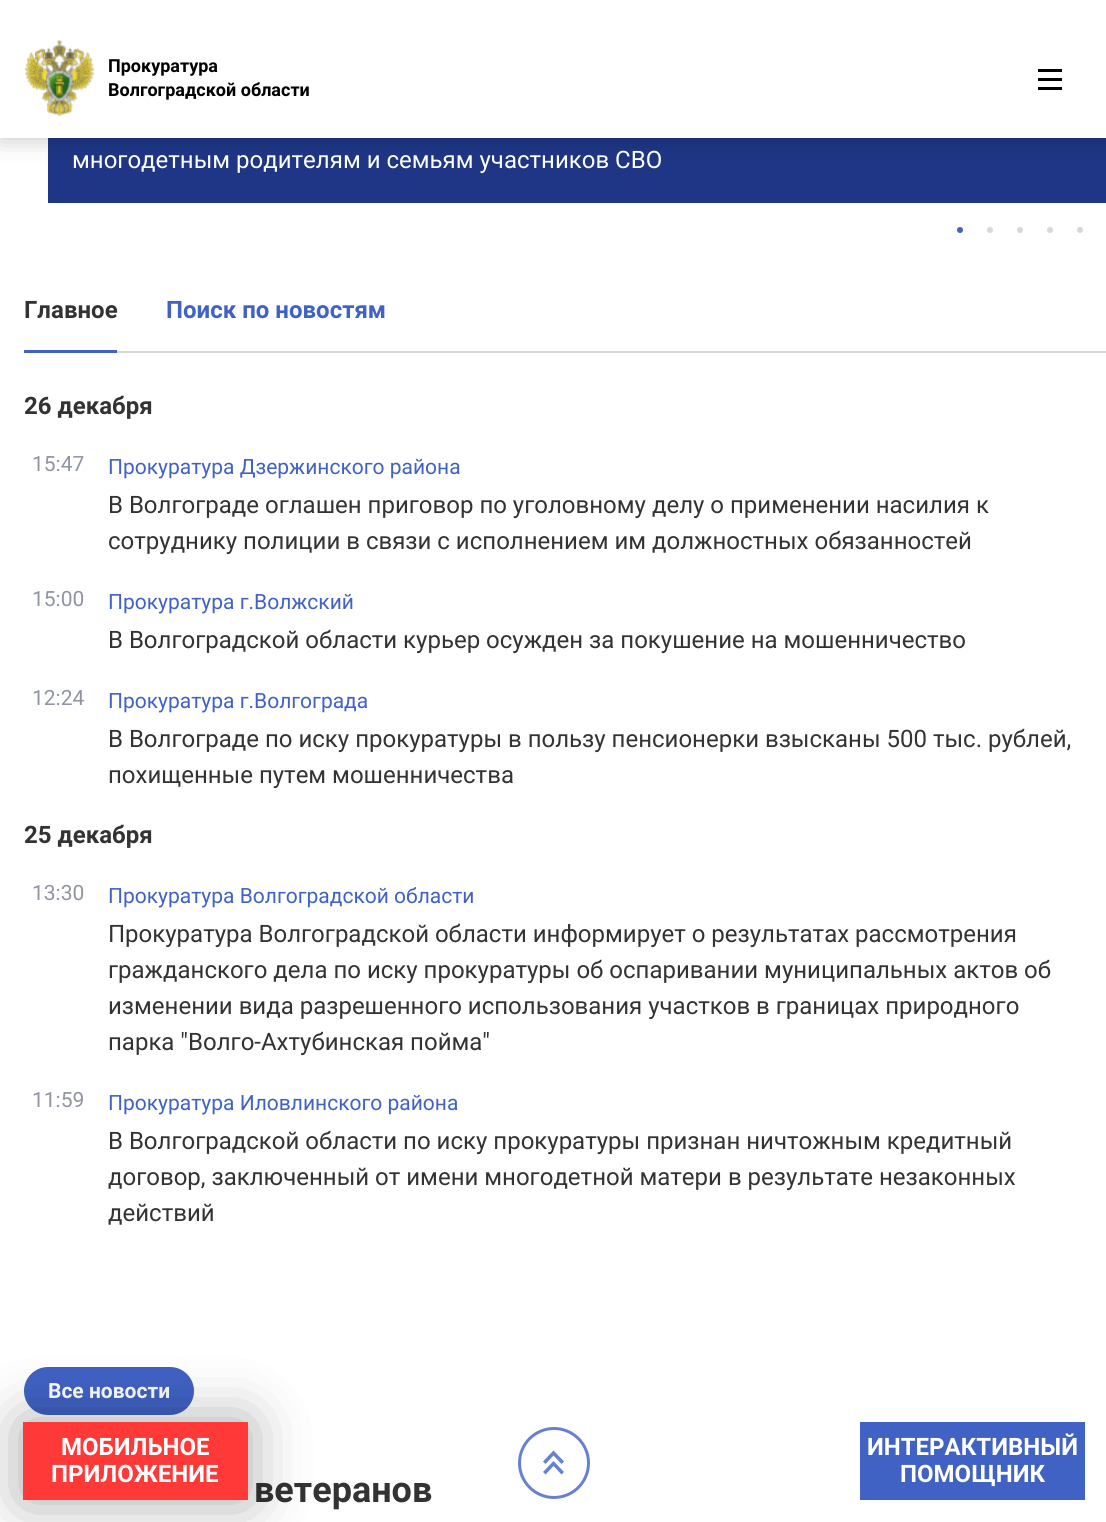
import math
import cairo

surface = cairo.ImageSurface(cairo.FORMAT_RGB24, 1106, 1522)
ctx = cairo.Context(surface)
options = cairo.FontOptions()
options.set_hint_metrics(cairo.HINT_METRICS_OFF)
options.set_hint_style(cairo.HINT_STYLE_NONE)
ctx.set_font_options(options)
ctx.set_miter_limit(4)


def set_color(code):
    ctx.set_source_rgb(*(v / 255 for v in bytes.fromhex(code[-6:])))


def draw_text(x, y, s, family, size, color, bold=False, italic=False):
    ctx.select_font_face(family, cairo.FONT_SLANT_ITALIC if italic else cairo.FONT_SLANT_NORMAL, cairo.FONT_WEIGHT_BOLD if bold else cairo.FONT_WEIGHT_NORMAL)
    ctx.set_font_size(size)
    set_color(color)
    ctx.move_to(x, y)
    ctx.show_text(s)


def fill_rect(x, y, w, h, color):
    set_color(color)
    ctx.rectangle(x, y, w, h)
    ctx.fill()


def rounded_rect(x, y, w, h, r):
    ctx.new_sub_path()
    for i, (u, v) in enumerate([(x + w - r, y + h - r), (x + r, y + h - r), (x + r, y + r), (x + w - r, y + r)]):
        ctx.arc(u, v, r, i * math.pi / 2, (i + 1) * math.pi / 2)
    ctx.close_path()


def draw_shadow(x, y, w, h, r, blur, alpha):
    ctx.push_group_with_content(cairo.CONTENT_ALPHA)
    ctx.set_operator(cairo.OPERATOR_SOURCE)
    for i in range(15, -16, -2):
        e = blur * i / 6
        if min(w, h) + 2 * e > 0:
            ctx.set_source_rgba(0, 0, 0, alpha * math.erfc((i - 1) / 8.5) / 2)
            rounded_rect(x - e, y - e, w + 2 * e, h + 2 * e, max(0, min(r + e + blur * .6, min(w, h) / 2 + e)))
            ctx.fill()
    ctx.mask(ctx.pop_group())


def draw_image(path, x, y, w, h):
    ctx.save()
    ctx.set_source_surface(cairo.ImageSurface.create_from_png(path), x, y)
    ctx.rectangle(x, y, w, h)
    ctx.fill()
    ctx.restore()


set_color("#ffffff")
ctx.paint()
fill_rect(48, 138, 1058, 65, "#1e3685")
set_color("#000000")
draw_shadow(0, 0, 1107, 138, 0, 12, 0.25)
fill_rect(0, 0, 1106, 138, "#ffffff")
draw_image("assets/img1.png", 25, 40, 70, 77)
draw_text(108, 72, "Прокуратура", "Roboto", 18, "#000000", bold=True)
draw_text(108, 96, "Волгоградской области", "Roboto", 18, "#000000", bold=True)
fill_rect(1038, 78, 24, 3, "#000000")
fill_rect(1038, 69, 24, 3, "#000000")
fill_rect(1038, 87, 24, 3, "#000000")
draw_text(72, 168, "многодетным родителям и семьям участников СВО", "Roboto", 24, "#ffffff")
set_color("#4062c4")
ctx.new_path()
ctx.arc(960, 230, 3, 0, 2 * math.pi)
ctx.fill()
set_color("#d8d8d8")
ctx.arc(990, 230, 3, 0, 2 * math.pi)
ctx.fill()
ctx.arc(1020, 230, 3, 0, 2 * math.pi)
ctx.fill()
ctx.arc(1050, 230, 3, 0, 2 * math.pi)
ctx.fill()
ctx.arc(1080, 230, 3, 0, 2 * math.pi)
ctx.fill()
draw_text(24, 318, "Главное", "Roboto", 24, "#333333", bold=True)
fill_rect(24, 350, 93, 3, "#4062c4")
draw_text(166, 318, "Поиск по новостям", "Roboto", 24, "#4062c4", bold=True)
fill_rect(117, 351, 989, 2, "#d8d8d8")
draw_text(24, 414, "26 декабря", "Roboto", 24, "#333333", bold=True)
draw_text(32, 471, "15:47", "Roboto", 21, "#9094a3")
draw_text(108, 474, "Прокуратура Дзержинского района", "Roboto", 21, "#4062c4")
draw_text(108, 513, "В Волгограде оглашен приговор по уголовному делу о применении насилия к", "Roboto", 24, "#333333")
draw_text(108, 549, "сотруднику полиции в связи с исполнением им должностных обязанностей", "Roboto", 24, "#333333")
draw_text(32, 606, "15:00", "Roboto", 21, "#9094a3")
draw_text(108, 609, "Прокуратура г.Волжский", "Roboto", 21, "#4062c4")
draw_text(108, 648, "В Волгоградской области курьер осужден за покушение на мошенничество", "Roboto", 24, "#333333")
draw_text(32, 705, "12:24", "Roboto", 21, "#9094a3")
draw_text(108, 708, "Прокуратура г.Волгограда", "Roboto", 21, "#4062c4")
draw_text(108, 747, "В Волгограде по иску прокуратуры в пользу пенсионерки взысканы 500 тыс. рублей,", "Roboto", 24, "#333333")
draw_text(108, 783, "похищенные путем мошенничества", "Roboto", 24, "#333333")
draw_text(24, 843, "25 декабря", "Roboto", 24, "#333333", bold=True)
draw_text(32, 900, "13:30", "Roboto", 21, "#9094a3")
draw_text(108, 903, "Прокуратура Волгоградской области", "Roboto", 21, "#4062c4")
draw_text(108, 942, "Прокуратура Волгоградской области информирует о результатах рассмотрения", "Roboto", 24, "#333333")
draw_text(108, 978, "гражданского дела по иску прокуратуры об оспаривании муниципальных актов об", "Roboto", 24, "#333333")
draw_text(108, 1014, "изменении вида разрешенного использования участков в границах природного", "Roboto", 24, "#333333")
draw_text(108, 1050, "парка \"Волго-Ахтубинская пойма\"", "Roboto", 24, "#333333")
draw_text(32, 1107, "11:59", "Roboto", 21, "#9094a3")
draw_text(108, 1110, "Прокуратура Иловлинского района", "Roboto", 21, "#4062c4")
draw_text(108, 1149, "В Волгоградской области по иску прокуратуры признан ничтожным кредитный", "Roboto", 24, "#333333")
draw_text(108, 1185, "договор, заключенный от имени многодетной матери в результате незаконных", "Roboto", 24, "#333333")
draw_text(108, 1221, "действий", "Roboto", 24, "#333333")
set_color("#4062c4")
rounded_rect(24, 1367, 170, 48, 24)
ctx.fill()
draw_text(48, 1398, "Все новости", "Roboto", 21, "#ffffff", bold=True)
draw_text(254, 1502, "ветеранов", "Roboto", 36, "#333333", bold=True)
set_color("#000000")
draw_shadow(23, 1422, 225, 78, 0, 30, 0.35)
fill_rect(23, 1422, 225, 78, "#ff3838")
draw_text(61, 1455, "МОБИЛЬНОЕ", "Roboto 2", 24, "#ffffff", bold=True)
draw_text(51, 1482, "ПРИЛОЖЕНИЕ", "Roboto 2", 24, "#ffffff", bold=True)
ctx.new_path()
ctx.arc(554, 1463, 34.5, 0, 2 * math.pi)
set_color("#6681d0")
ctx.set_line_width(3)
ctx.stroke()
ctx.new_path()
ctx.move_to(543, 1461.5)
ctx.line_to(545.5, 1464)
ctx.line_to(553.5, 1455.5)
ctx.line_to(561.5, 1464)
ctx.line_to(564, 1461.5)
ctx.line_to(553.5, 1450.5)
ctx.close_path()
ctx.fill()
ctx.new_path()
ctx.move_to(543, 1472)
ctx.line_to(545.5, 1474.5)
ctx.line_to(553.5, 1466)
ctx.line_to(561.5, 1474.5)
ctx.line_to(564, 1472)
ctx.line_to(553.5, 1461)
ctx.close_path()
ctx.fill()
fill_rect(860, 1422, 225, 78, "#4062c4")
draw_text(867, 1455, "ИНТЕРАКТИВНЫЙ", "Roboto 2", 24, "#ffffff", bold=True)
draw_text(900, 1482, "ПОМОЩНИК", "Roboto 2", 24, "#ffffff", bold=True)
surface.write_to_png("output.png")
